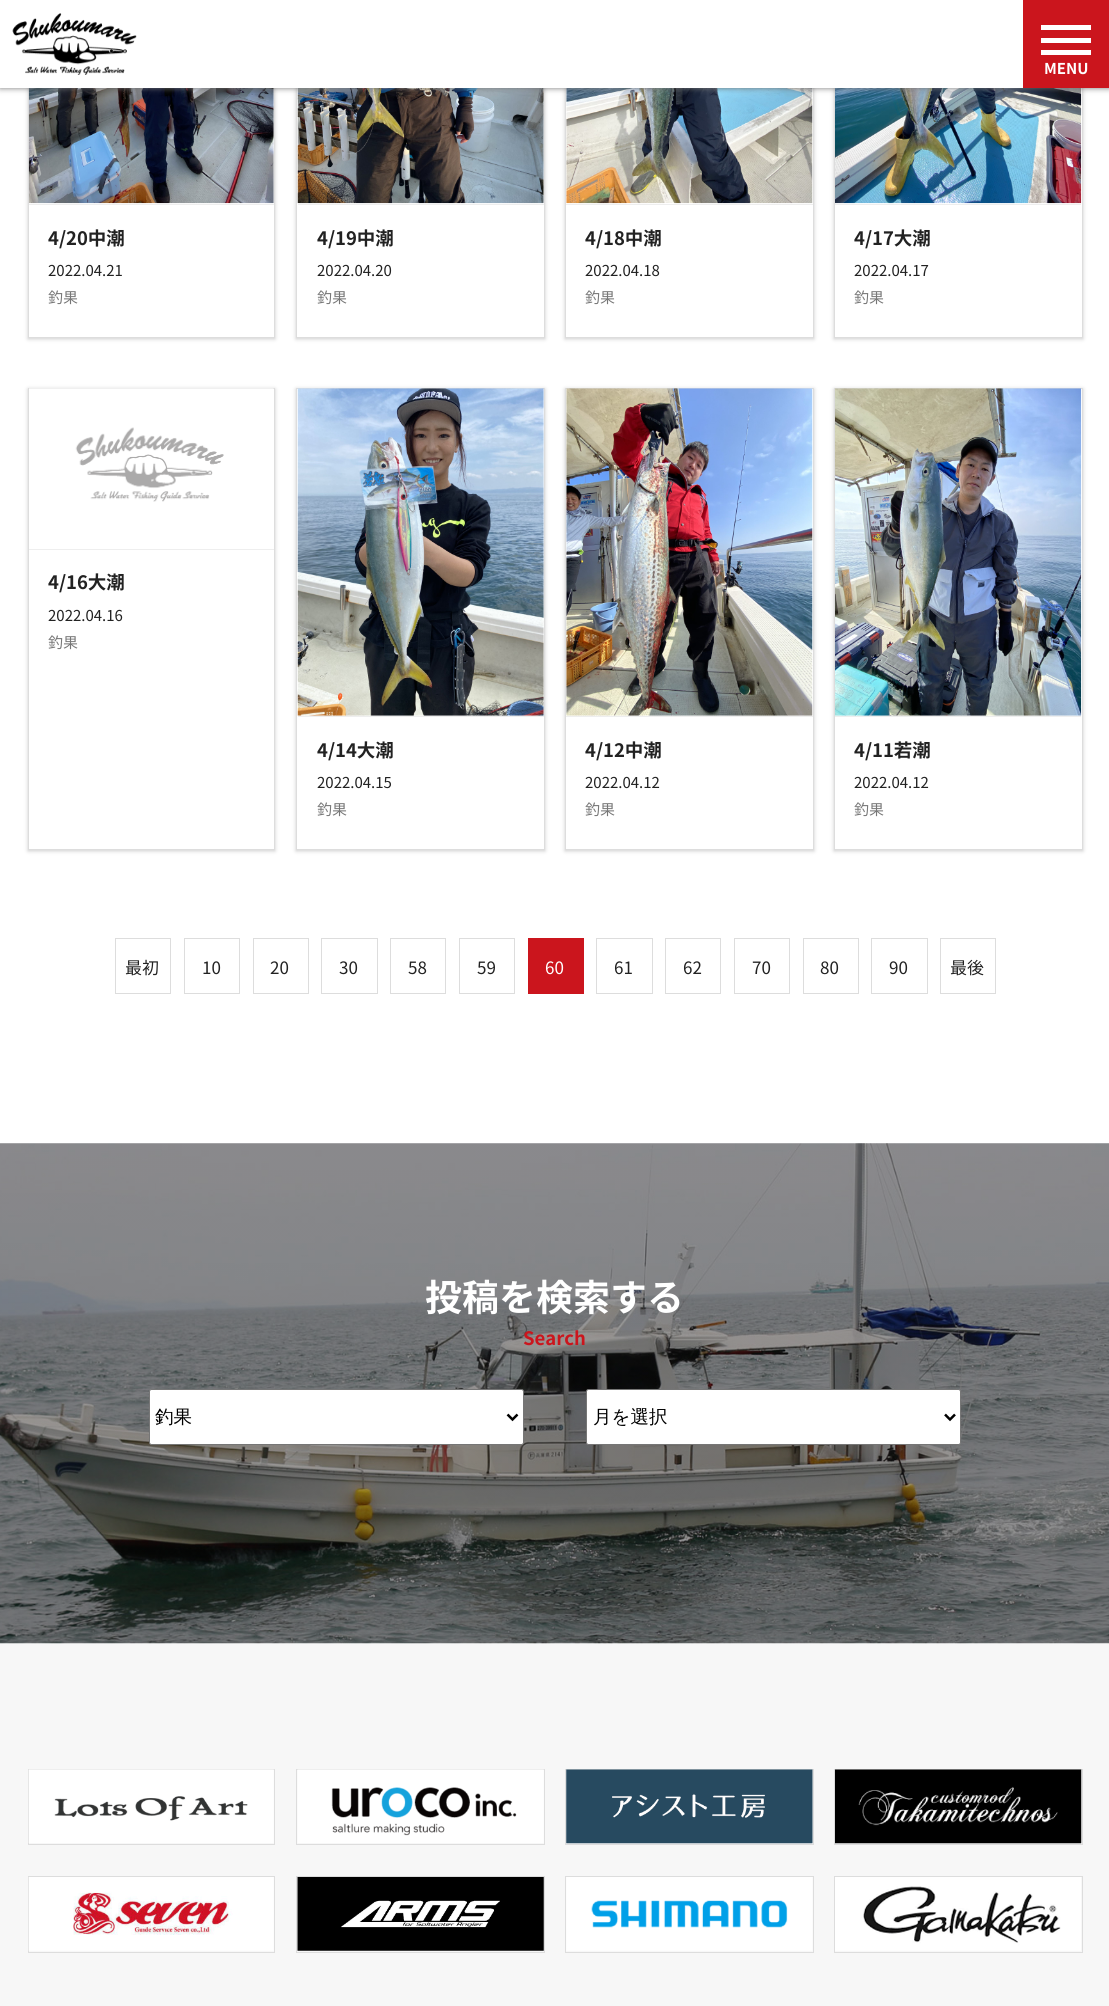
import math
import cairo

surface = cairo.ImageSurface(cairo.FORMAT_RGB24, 1109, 2006)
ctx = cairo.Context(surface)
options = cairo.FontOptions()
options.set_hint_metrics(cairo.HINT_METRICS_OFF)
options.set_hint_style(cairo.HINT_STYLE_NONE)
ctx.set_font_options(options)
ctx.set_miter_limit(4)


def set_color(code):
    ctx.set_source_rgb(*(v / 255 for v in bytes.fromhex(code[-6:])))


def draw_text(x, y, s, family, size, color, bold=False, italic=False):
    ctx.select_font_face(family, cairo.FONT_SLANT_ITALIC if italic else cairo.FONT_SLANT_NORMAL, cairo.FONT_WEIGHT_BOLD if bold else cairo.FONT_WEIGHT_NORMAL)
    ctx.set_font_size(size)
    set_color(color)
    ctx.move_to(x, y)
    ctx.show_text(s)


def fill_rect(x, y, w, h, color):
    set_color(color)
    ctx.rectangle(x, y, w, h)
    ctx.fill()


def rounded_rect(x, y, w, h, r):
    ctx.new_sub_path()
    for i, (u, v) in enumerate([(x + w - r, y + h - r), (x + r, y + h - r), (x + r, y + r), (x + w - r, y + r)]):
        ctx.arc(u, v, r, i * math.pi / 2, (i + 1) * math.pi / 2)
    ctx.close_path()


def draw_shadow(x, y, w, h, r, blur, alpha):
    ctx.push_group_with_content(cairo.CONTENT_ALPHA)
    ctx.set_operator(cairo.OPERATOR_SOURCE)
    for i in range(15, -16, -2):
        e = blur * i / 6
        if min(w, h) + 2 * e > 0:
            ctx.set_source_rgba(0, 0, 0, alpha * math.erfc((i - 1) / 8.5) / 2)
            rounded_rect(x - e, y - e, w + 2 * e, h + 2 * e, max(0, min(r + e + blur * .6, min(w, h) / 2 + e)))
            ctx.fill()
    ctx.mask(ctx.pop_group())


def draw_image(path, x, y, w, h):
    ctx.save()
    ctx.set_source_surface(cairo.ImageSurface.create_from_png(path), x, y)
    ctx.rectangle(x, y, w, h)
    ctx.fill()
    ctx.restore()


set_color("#ffffff")
ctx.paint()
ctx.save()
ctx.set_fill_rule(cairo.FILL_RULE_EVEN_ODD)
ctx.new_path()
ctx.move_to(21, 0)
ctx.line_to(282, 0)
ctx.line_to(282, 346)
ctx.line_to(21, 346)
ctx.close_path()
ctx.move_to(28, -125)
ctx.line_to(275, -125)
ctx.line_to(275, 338)
ctx.line_to(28, 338)
ctx.close_path()
ctx.clip()
set_color("#cccccc")
draw_shadow(28, -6, 247, 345, 0, 2, 1)
ctx.restore()
ctx.rectangle(28.5, -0.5, 246, 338)
set_color("#dddddd")
ctx.set_line_width(1)
ctx.stroke()
draw_image("assets/img2.png", 28, 88, 246, 116)
ctx.save()
ctx.set_fill_rule(cairo.FILL_RULE_EVEN_ODD)
ctx.new_path()
ctx.move_to(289, 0)
ctx.line_to(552, 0)
ctx.line_to(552, 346)
ctx.line_to(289, 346)
ctx.close_path()
ctx.move_to(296, -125)
ctx.line_to(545, -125)
ctx.line_to(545, 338)
ctx.line_to(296, 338)
ctx.close_path()
ctx.clip()
set_color("#cccccc")
draw_shadow(296, -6, 249, 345, 0, 2, 1)
ctx.restore()
ctx.rectangle(296.5, -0.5, 248, 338)
ctx.stroke()
draw_image("assets/img3.png", 297, 88, 247, 116)
ctx.save()
ctx.set_fill_rule(cairo.FILL_RULE_EVEN_ODD)
ctx.new_path()
ctx.move_to(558, 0)
ctx.line_to(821, 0)
ctx.line_to(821, 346)
ctx.line_to(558, 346)
ctx.close_path()
ctx.move_to(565, -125)
ctx.line_to(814, -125)
ctx.line_to(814, 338)
ctx.line_to(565, 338)
ctx.close_path()
ctx.clip()
set_color("#cccccc")
draw_shadow(565, -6, 249, 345, 0, 2, 1)
ctx.restore()
ctx.rectangle(565.5, -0.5, 248, 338)
ctx.stroke()
draw_image("assets/img4.png", 566, 88, 247, 116)
ctx.save()
ctx.set_fill_rule(cairo.FILL_RULE_EVEN_ODD)
ctx.new_path()
ctx.move_to(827, 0)
ctx.line_to(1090, 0)
ctx.line_to(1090, 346)
ctx.line_to(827, 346)
ctx.close_path()
ctx.move_to(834, -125)
ctx.line_to(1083, -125)
ctx.line_to(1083, 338)
ctx.line_to(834, 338)
ctx.close_path()
ctx.clip()
set_color("#cccccc")
draw_shadow(834, -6, 249, 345, 0, 2, 1)
ctx.restore()
ctx.rectangle(834.5, -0.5, 248, 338)
ctx.stroke()
draw_image("assets/img5.png", 835, 88, 247, 116)
set_color("#777777")
draw_shadow(0, 0, 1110, 88, 0, 3, 1)
fill_rect(0, 0, 1023, 88, "#ffffff")
draw_image("assets/img1.png", 12, 13, 125, 62)
fill_rect(1023, 0, 86, 88, "#cb151d")
fill_rect(1041, 38, 50, 5, "#ffffff")
fill_rect(1041, 25, 50, 5, "#ffffff")
fill_rect(1041, 50, 50, 5, "#ffffff")
draw_text(1044, 74, "MENU", "Noto Sans JP", 15, "#ffffff", bold=True)
fill_rect(29, 204, 245, 1, "#eeeeee")
draw_text(48, 245, "4/20中潮", "Noto Sans JP", 18.5, "#222222", bold=True)
draw_text(48, 276, "2022.04.21", "Noto Sans JP", 15, "#222222")
draw_text(48, 303, "釣果", "Noto Sans JP", 15, "#777777")
fill_rect(298, 204, 246, 1, "#eeeeee")
draw_text(317, 245, "4/19中潮", "Noto Sans JP", 18.5, "#222222", bold=True)
draw_text(317, 276, "2022.04.20", "Noto Sans JP", 15, "#222222")
draw_text(317, 303, "釣果", "Noto Sans JP", 15, "#777777")
fill_rect(566, 204, 247, 1, "#eeeeee")
draw_text(585, 245, "4/18中潮", "Noto Sans JP", 18.5, "#222222", bold=True)
draw_text(585, 276, "2022.04.18", "Noto Sans JP", 15, "#222222")
draw_text(585, 303, "釣果", "Noto Sans JP", 15, "#777777")
fill_rect(835, 204, 246, 1, "#eeeeee")
draw_text(854, 245, "4/17大潮", "Noto Sans JP", 18.5, "#222222", bold=True)
draw_text(854, 276, "2022.04.17", "Noto Sans JP", 15, "#222222")
draw_text(854, 303, "釣果", "Noto Sans JP", 15, "#777777")
ctx.save()
ctx.set_fill_rule(cairo.FILL_RULE_EVEN_ODD)
ctx.new_path()
ctx.move_to(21, 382)
ctx.line_to(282, 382)
ctx.line_to(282, 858)
ctx.line_to(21, 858)
ctx.close_path()
ctx.move_to(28, 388)
ctx.line_to(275, 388)
ctx.line_to(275, 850)
ctx.line_to(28, 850)
ctx.close_path()
ctx.clip()
set_color("#cccccc")
draw_shadow(28, 389, 247, 462, 0, 2, 1)
ctx.restore()
ctx.rectangle(28.5, 388.5, 246, 461)
set_color("#dddddd")
ctx.stroke()
fill_rect(29, 549, 245, 1, "#eeeeee")
draw_image("assets/img6.png", 29, 388, 245, 114)
draw_text(48, 589, "4/16大潮", "Noto Sans JP", 18.5, "#222222", bold=True)
draw_text(48, 621, "2022.04.16", "Noto Sans JP", 15, "#222222")
draw_text(48, 648, "釣果", "Noto Sans JP", 15, "#777777")
ctx.save()
ctx.set_fill_rule(cairo.FILL_RULE_EVEN_ODD)
ctx.new_path()
ctx.move_to(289, 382)
ctx.line_to(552, 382)
ctx.line_to(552, 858)
ctx.line_to(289, 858)
ctx.close_path()
ctx.move_to(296, 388)
ctx.line_to(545, 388)
ctx.line_to(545, 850)
ctx.line_to(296, 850)
ctx.close_path()
ctx.clip()
set_color("#cccccc")
draw_shadow(296, 389, 249, 462, 0, 2, 1)
ctx.restore()
ctx.rectangle(296.5, 388.5, 248, 461)
set_color("#dddddd")
ctx.stroke()
fill_rect(298, 716, 246, 1, "#eeeeee")
draw_image("assets/img7.png", 297, 388, 247, 328)
draw_text(317, 757, "4/14大潮", "Noto Sans JP", 18.5, "#222222", bold=True)
draw_text(317, 788, "2022.04.15", "Noto Sans JP", 15, "#222222")
draw_text(317, 815, "釣果", "Noto Sans JP", 15, "#777777")
ctx.save()
ctx.set_fill_rule(cairo.FILL_RULE_EVEN_ODD)
ctx.new_path()
ctx.move_to(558, 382)
ctx.line_to(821, 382)
ctx.line_to(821, 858)
ctx.line_to(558, 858)
ctx.close_path()
ctx.move_to(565, 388)
ctx.line_to(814, 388)
ctx.line_to(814, 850)
ctx.line_to(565, 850)
ctx.close_path()
ctx.clip()
set_color("#cccccc")
draw_shadow(565, 389, 249, 462, 0, 2, 1)
ctx.restore()
ctx.rectangle(565.5, 388.5, 248, 461)
set_color("#dddddd")
ctx.stroke()
fill_rect(566, 716, 247, 1, "#eeeeee")
draw_image("assets/img8.png", 566, 388, 247, 328)
draw_text(585, 757, "4/12中潮", "Noto Sans JP", 18.5, "#222222", bold=True)
draw_text(585, 788, "2022.04.12", "Noto Sans JP", 15, "#222222")
draw_text(585, 815, "釣果", "Noto Sans JP", 15, "#777777")
ctx.save()
ctx.set_fill_rule(cairo.FILL_RULE_EVEN_ODD)
ctx.new_path()
ctx.move_to(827, 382)
ctx.line_to(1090, 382)
ctx.line_to(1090, 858)
ctx.line_to(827, 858)
ctx.close_path()
ctx.move_to(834, 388)
ctx.line_to(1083, 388)
ctx.line_to(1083, 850)
ctx.line_to(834, 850)
ctx.close_path()
ctx.clip()
set_color("#cccccc")
draw_shadow(834, 389, 249, 462, 0, 2, 1)
ctx.restore()
ctx.rectangle(834.5, 388.5, 248, 461)
set_color("#dddddd")
ctx.stroke()
fill_rect(835, 716, 246, 1, "#eeeeee")
draw_image("assets/img9.png", 835, 388, 247, 328)
draw_text(854, 757, "4/11若潮", "Noto Sans JP", 18.5, "#222222", bold=True)
draw_text(854, 788, "2022.04.12", "Noto Sans JP", 15, "#222222")
draw_text(854, 815, "釣果", "Noto Sans JP", 15, "#777777")
ctx.rectangle(115.5, 938.5, 55, 55)
set_color("#dddddd")
ctx.stroke()
draw_text(125, 974, "最初", "Noto Sans JP", 17, "#222222")
ctx.rectangle(184.5, 938.5, 55, 55)
set_color("#dddddd")
ctx.stroke()
draw_text(202, 974, "10", "Noto Sans JP", 17, "#222222")
ctx.rectangle(253.5, 938.5, 55, 55)
set_color("#dddddd")
ctx.stroke()
draw_text(270, 974, "20", "Noto Sans JP", 17, "#222222")
ctx.rectangle(321.5, 938.5, 56, 55)
set_color("#dddddd")
ctx.stroke()
draw_text(339, 974, "30", "Noto Sans JP", 17, "#222222")
ctx.rectangle(390.5, 938.5, 55, 55)
set_color("#dddddd")
ctx.stroke()
draw_text(408, 974, "58", "Noto Sans JP", 17, "#222222")
ctx.rectangle(459.5, 938.5, 55, 55)
set_color("#dddddd")
ctx.stroke()
draw_text(477, 974, "59", "Noto Sans JP", 17, "#222222")
fill_rect(528, 938, 56, 56, "#cb151d")
draw_text(545, 974, "60", "Noto Sans JP", 17, "#ffffff")
ctx.rectangle(596.5, 938.5, 56, 55)
set_color("#dddddd")
ctx.stroke()
draw_text(614, 974, "61", "Noto Sans JP", 17, "#222222")
ctx.rectangle(665.5, 938.5, 55, 55)
set_color("#dddddd")
ctx.stroke()
draw_text(683, 974, "62", "Noto Sans JP", 17, "#222222")
ctx.rectangle(734.5, 938.5, 55, 55)
set_color("#dddddd")
ctx.stroke()
draw_text(752, 974, "70", "Noto Sans JP", 17, "#222222")
ctx.rectangle(803.5, 938.5, 55, 55)
set_color("#dddddd")
ctx.stroke()
draw_text(820, 974, "80", "Noto Sans JP", 17, "#222222")
ctx.rectangle(871.5, 938.5, 56, 55)
set_color("#dddddd")
ctx.stroke()
draw_text(889, 974, "90", "Noto Sans JP", 17, "#222222")
ctx.rectangle(940.5, 938.5, 55, 55)
set_color("#dddddd")
ctx.stroke()
draw_text(950, 974, "最後", "Noto Sans JP", 17, "#222222")
draw_image("assets/img10.png", 0, 1143, 1109, 501)
draw_text(425, 1311, "投稿を検索する", "Noto Sans JP", 37, "#ffffff", bold=True)
draw_text(523, 1345, "Search", "Noto Sans JP", 18.5, "#cb151d", bold=True)
set_color("#ffffff")
rounded_rect(149.5, 1389.5, 374, 55, 2)
ctx.fill_preserve()
set_color("#767676")
ctx.stroke()
ctx.new_path()
ctx.move_to(507.5, 1414.5)
ctx.line_to(512.5, 1419.5)
ctx.line_to(517.5, 1414.5)
set_color("#000000")
ctx.set_line_width(2.5)
ctx.stroke()
draw_text(155, 1423, "釣果", "WenQuanYi Zen Hei Medium", 18.5, "#000000")
set_color("#ffffff")
rounded_rect(586.5, 1389.5, 374, 55, 2)
ctx.fill_preserve()
set_color("#767676")
ctx.set_line_width(1)
ctx.stroke()
ctx.new_path()
ctx.move_to(945, 1414.5)
ctx.line_to(950, 1419.5)
ctx.line_to(955, 1414.5)
set_color("#000000")
ctx.set_line_width(2.5)
ctx.stroke()
draw_text(593, 1423, "月を選択", "WenQuanYi Zen Hei Medium", 18.5, "#000000")
fill_rect(0, 1644, 1109, 362, "#f7f7f7")
ctx.rectangle(28.5, 1769.5, 246, 75)
set_color("#dddddd")
ctx.set_line_width(1)
ctx.stroke()
draw_image("assets/img11.png", 28, 1769, 246, 74)
ctx.rectangle(296.5, 1769.5, 248, 75)
ctx.stroke()
draw_image("assets/img12.png", 297, 1769, 247, 74)
ctx.rectangle(565.5, 1769.5, 248, 75)
ctx.stroke()
draw_image("assets/img13.png", 566, 1769, 247, 75)
ctx.rectangle(834.5, 1769.5, 248, 75)
ctx.stroke()
draw_image("assets/img14.png", 835, 1769, 247, 75)
ctx.rectangle(28.5, 1876.5, 246, 76)
ctx.stroke()
draw_image("assets/img15.png", 28, 1877, 246, 74)
ctx.rectangle(296.5, 1876.5, 248, 76)
ctx.stroke()
draw_image("assets/img16.png", 297, 1877, 247, 74)
ctx.rectangle(565.5, 1876.5, 248, 76)
ctx.stroke()
draw_image("assets/img17.png", 566, 1877, 247, 74)
ctx.rectangle(834.5, 1876.5, 248, 76)
ctx.stroke()
draw_image("assets/img18.png", 835, 1877, 246, 74)
surface.write_to_png("output.png")
